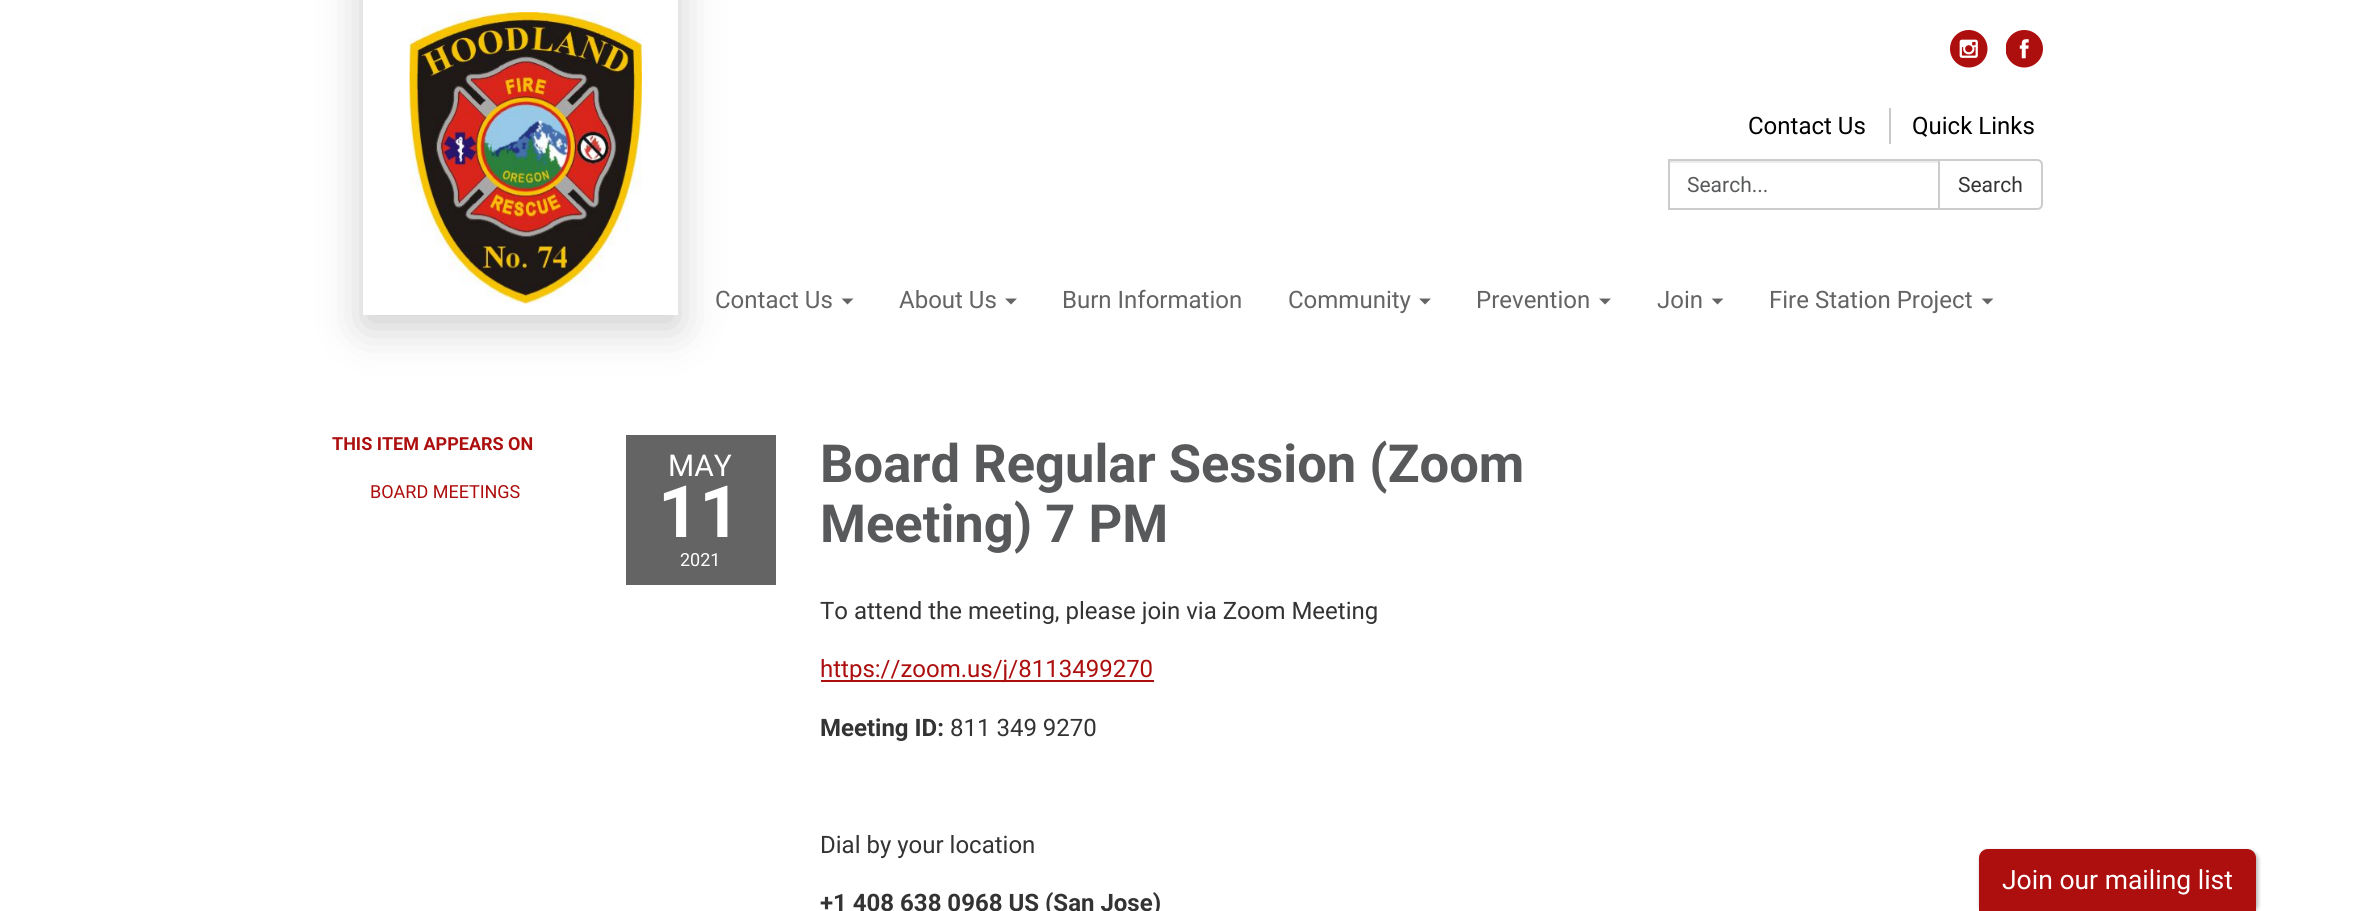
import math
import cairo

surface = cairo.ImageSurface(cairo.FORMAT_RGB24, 2374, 911)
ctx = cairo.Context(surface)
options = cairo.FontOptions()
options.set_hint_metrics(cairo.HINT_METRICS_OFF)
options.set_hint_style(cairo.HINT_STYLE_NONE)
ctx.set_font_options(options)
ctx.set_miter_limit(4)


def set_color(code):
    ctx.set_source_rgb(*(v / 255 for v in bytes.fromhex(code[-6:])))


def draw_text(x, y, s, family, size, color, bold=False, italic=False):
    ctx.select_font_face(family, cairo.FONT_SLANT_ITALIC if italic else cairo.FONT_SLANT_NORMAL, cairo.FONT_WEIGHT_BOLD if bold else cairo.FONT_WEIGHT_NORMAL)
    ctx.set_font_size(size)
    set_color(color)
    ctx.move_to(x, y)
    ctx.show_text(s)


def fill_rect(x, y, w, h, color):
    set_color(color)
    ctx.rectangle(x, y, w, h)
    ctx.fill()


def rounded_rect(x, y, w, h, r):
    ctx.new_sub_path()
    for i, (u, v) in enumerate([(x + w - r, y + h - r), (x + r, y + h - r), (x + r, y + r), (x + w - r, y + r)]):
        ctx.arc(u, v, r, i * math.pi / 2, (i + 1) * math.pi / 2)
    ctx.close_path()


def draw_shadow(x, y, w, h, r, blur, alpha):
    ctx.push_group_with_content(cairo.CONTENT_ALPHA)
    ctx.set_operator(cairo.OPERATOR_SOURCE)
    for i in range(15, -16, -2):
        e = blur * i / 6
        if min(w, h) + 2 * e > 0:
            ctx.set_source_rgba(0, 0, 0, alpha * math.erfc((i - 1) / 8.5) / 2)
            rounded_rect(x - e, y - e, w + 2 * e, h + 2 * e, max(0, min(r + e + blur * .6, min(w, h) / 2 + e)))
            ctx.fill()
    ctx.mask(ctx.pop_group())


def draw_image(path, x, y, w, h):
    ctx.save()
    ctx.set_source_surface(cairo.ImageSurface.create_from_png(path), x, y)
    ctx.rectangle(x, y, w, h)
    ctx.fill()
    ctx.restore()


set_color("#ffffff")
ctx.paint()
ctx.save()
ctx.set_fill_rule(cairo.FILL_RULE_EVEN_ODD)
ctx.new_path()
ctx.move_to(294, 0)
ctx.line_to(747, 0)
ctx.line_to(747, 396)
ctx.line_to(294, 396)
ctx.close_path()
ctx.move_to(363, -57)
ctx.line_to(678, -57)
ctx.line_to(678, 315)
ctx.line_to(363, 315)
ctx.close_path()
ctx.clip()
set_color("#000000")
draw_shadow(363, -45, 315, 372, 0, 22.5, 0.2)
ctx.restore()
draw_image("assets/img1.png", 409, 12, 233, 292)
draw_image("assets/img2.png", 1950, 30, 38, 38)
draw_image("assets/img3.png", 2006, 30, 37, 38)
draw_text(1748, 134, "Contact Us", "Roboto", 24, "#000000")
fill_rect(1889, 108, 2, 36, "#c8c9cb")
draw_text(1912, 134, "Quick Links", "Roboto", 24, "#000000")
fill_rect(1670, 161, 268, 2, "#ececec")
ctx.rectangle(1669, 160, 270, 49)
set_color("#cccccc")
ctx.stroke()
draw_text(1687, 192, "Search...", "Roboto", 21, "#58595b")
set_color("#ffffff")
ctx.new_path()
ctx.move_to(1939, 160)
ctx.line_to(2037, 160)
ctx.curve_to(2040, 160, 2042, 162, 2042, 165)
ctx.line_to(2042, 204)
ctx.curve_to(2042, 207, 2040, 209, 2037, 209)
ctx.line_to(1939, 209)
ctx.close_path()
ctx.fill_preserve()
set_color("#cccccc")
ctx.stroke()
draw_text(1958, 192, "Search", "Roboto", 21, "#333333")
draw_text(715, 308, "Contact Us", "Roboto", 24, "#646464")
ctx.new_path()
ctx.move_to(841.5, 298.5)
ctx.line_to(853.5, 298.5)
ctx.line_to(847.5, 304.5)
ctx.close_path()
ctx.fill()
draw_text(899, 308, "About Us", "Roboto", 24, "#646464")
ctx.new_path()
ctx.move_to(1005, 298.5)
ctx.line_to(1017, 298.5)
ctx.line_to(1011, 304.5)
ctx.close_path()
ctx.fill()
draw_text(1062, 308, "Burn Information", "Roboto", 24, "#646464")
draw_text(1288, 308, "Community", "Roboto", 24, "#646464")
ctx.new_path()
ctx.move_to(1419, 298.5)
ctx.line_to(1431, 298.5)
ctx.line_to(1425, 304.5)
ctx.close_path()
ctx.fill()
draw_text(1476, 308, "Prevention", "Roboto", 24, "#646464")
ctx.new_path()
ctx.move_to(1599, 298.5)
ctx.line_to(1611, 298.5)
ctx.line_to(1605, 304.5)
ctx.close_path()
ctx.fill()
draw_text(1657, 308, "Join", "Roboto", 24, "#646464")
ctx.new_path()
ctx.move_to(1711.5, 298.5)
ctx.line_to(1723.5, 298.5)
ctx.line_to(1717.5, 304.5)
ctx.close_path()
ctx.fill()
draw_text(1769, 308, "Fire Station Project", "Roboto", 24, "#646464")
ctx.new_path()
ctx.move_to(1981.5, 298.5)
ctx.line_to(1993.5, 298.5)
ctx.line_to(1987.5, 304.5)
ctx.close_path()
ctx.fill()
draw_text(332, 450, "THIS ITEM APPEARS ON", "Roboto", 18, "#ad0e0e", bold=True)
draw_text(370, 498, "BOARD MEETINGS", "Roboto", 18, "#ad0e0e")
fill_rect(626, 435, 150, 150, "#646464")
draw_text(668, 476, "MAY", "Roboto", 30, "#ffffff")
draw_text(658, 537, "11", "Roboto", 72, "#ffffff", bold=True)
draw_text(680, 566, "2021", "Roboto", 18, "#ffffff")
draw_text(820, 482, "Board Regular Session (Zoom", "Roboto", 52.5, "#58595b", bold=True)
draw_text(820, 542, "Meeting) 7 PM", "Roboto", 52.5, "#58595b", bold=True)
draw_text(820, 619, "To attend the meeting, please join via Zoom Meeting", "Roboto", 24, "#333333")
fill_rect(821, 680, 333, 2, "#ad0e0e")
draw_text(820, 677, "https://zoom.us/j/8113499270", "Roboto", 24, "#ad0e0e")
draw_text(820, 736, "Meeting ID:", "Roboto", 24, "#333333", bold=True)
draw_text(950, 736, "811 349 9270", "Roboto", 24, "#333333")
draw_text(820, 853, "Dial by your location", "Roboto", 24, "#333333")
draw_text(820, 911, "+1 408 638 0968 US (San Jose)", "Roboto", 24, "#333333", bold=True)
set_color("#000000")
draw_shadow(1980, 851, 278, 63, 9, 2, 0.3)
set_color("#ad0e0e")
ctx.new_path()
ctx.move_to(1988, 849)
ctx.line_to(2247, 849)
ctx.curve_to(2252, 849, 2256, 853, 2256, 858)
ctx.line_to(2256, 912)
ctx.line_to(1979, 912)
ctx.line_to(1979, 858)
ctx.curve_to(1979, 853, 1983, 849, 1988, 849)
ctx.close_path()
ctx.fill()
draw_text(2002, 889, "Join our mailing list", "Roboto", 26.5, "#ffffff")
surface.write_to_png("output.png")
